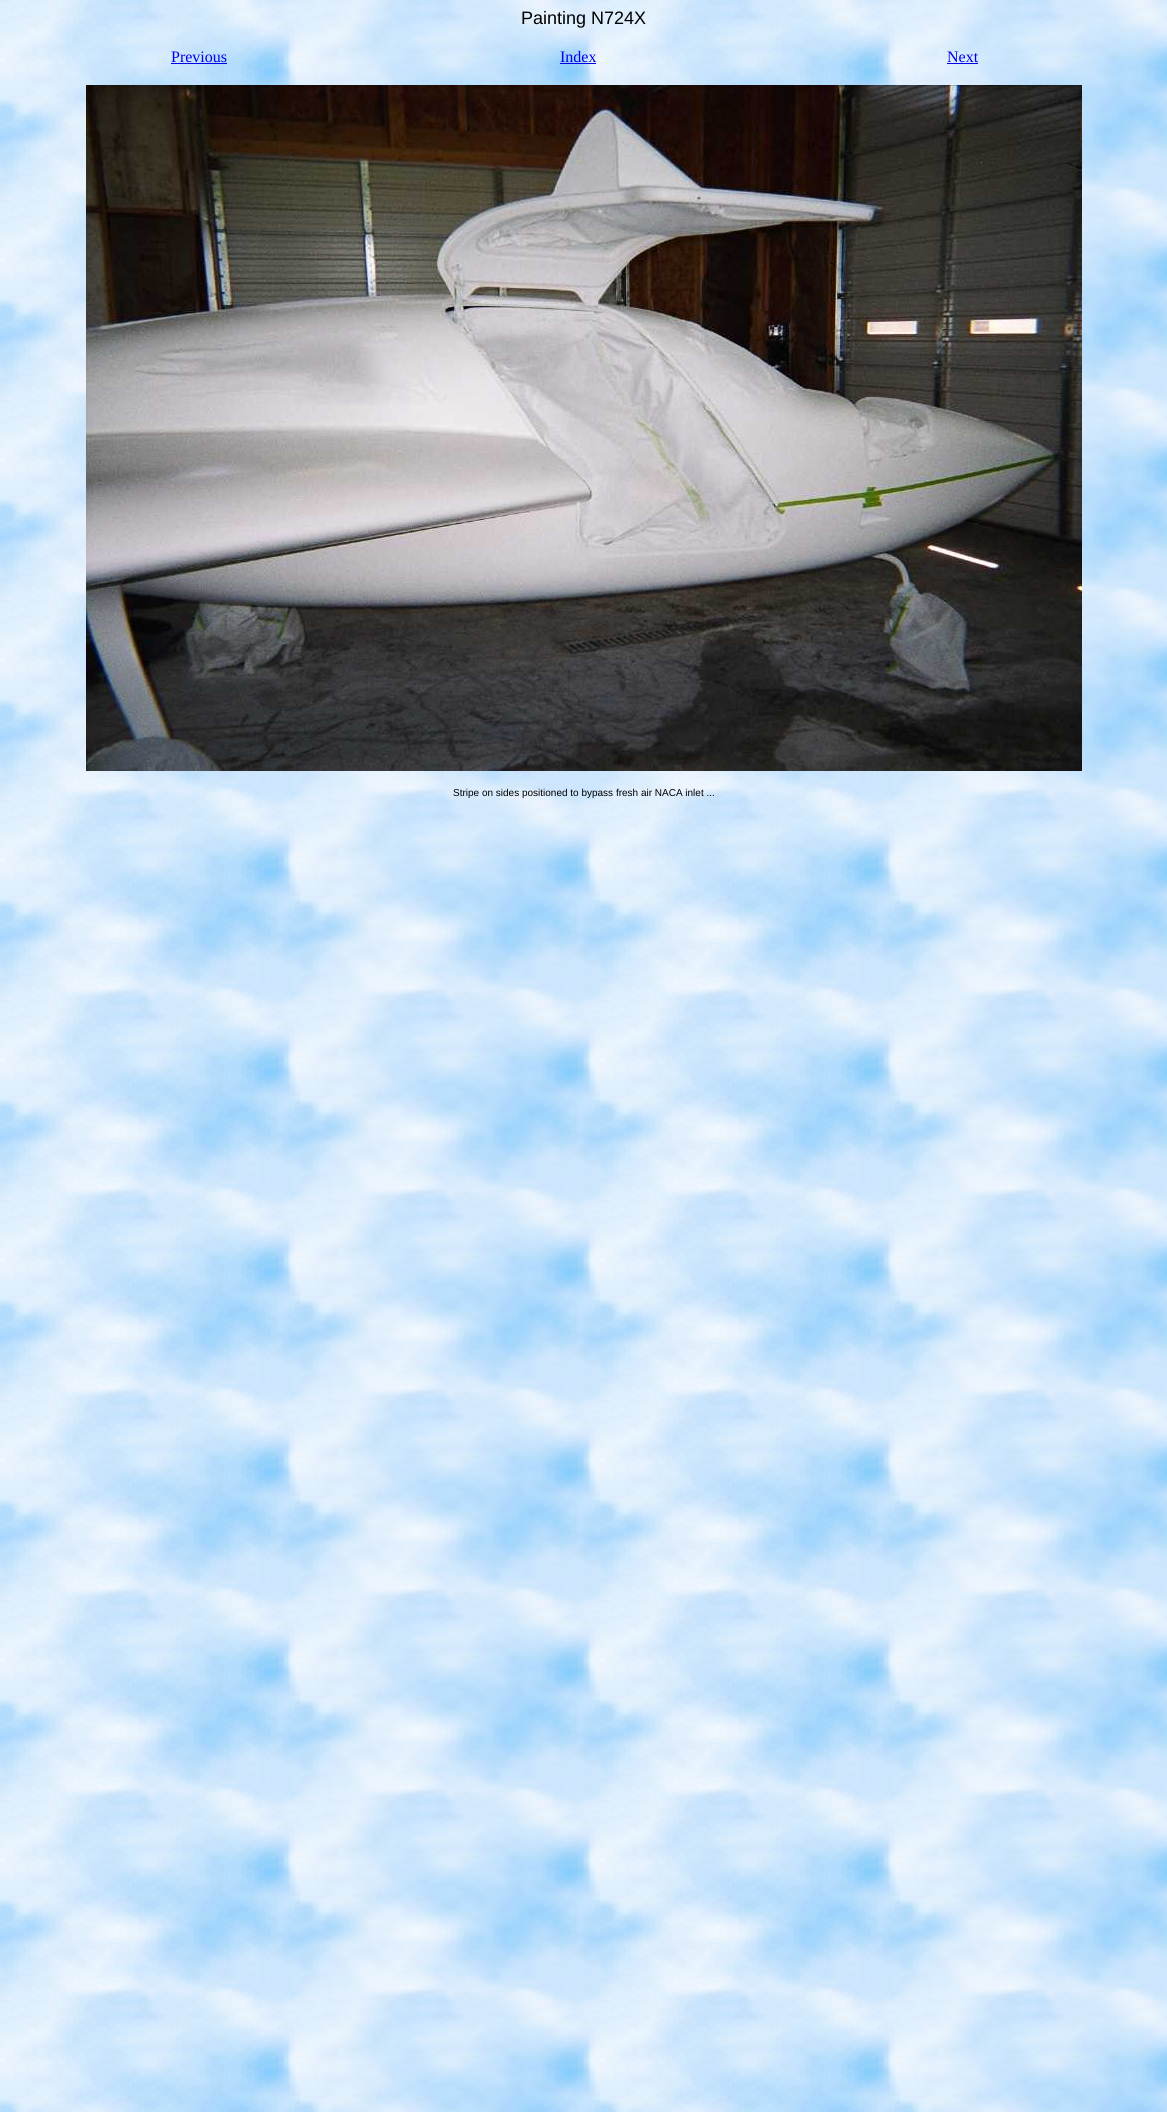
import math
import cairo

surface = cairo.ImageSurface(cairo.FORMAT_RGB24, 1167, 2112)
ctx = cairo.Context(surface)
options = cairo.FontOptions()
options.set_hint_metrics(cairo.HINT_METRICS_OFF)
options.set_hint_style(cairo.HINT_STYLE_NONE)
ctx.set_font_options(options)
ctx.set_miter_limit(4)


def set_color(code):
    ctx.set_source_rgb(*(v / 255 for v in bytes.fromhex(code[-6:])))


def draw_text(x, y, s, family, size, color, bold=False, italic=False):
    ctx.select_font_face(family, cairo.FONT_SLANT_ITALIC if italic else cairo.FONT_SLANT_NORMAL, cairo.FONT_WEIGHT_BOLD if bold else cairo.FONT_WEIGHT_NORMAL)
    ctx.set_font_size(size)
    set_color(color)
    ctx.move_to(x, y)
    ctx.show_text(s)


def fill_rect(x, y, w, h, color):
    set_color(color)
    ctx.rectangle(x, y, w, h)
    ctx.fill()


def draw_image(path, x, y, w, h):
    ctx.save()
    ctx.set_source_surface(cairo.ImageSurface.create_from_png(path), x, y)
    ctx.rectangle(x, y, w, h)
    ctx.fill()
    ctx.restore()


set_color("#ffffff")
ctx.paint()
draw_image("assets/img1.png", 0, 0, 1167, 2112)
draw_text(521, 24, "Painting N724X", "Liberation Sans", 18, "#000000")
draw_text(171, 62, "Previous", "Liberation Serif", 16, "#0000ee")
fill_rect(171, 63, 56, 1, "#0000ee")
draw_text(560, 62, "Index", "Liberation Serif", 16, "#0000ee")
fill_rect(560, 63, 36, 1, "#0000ee")
draw_text(947, 62, "Next", "Liberation Serif", 16, "#0000ee")
fill_rect(947, 63, 31, 1, "#0000ee")
draw_image("assets/img2.png", 86, 85, 996, 686)
draw_text(453, 796, "Stripe on sides positioned to bypass fresh air NACA inlet ...", "Liberation Sans", 10, "#000000")
surface.write_to_png("output.png")
